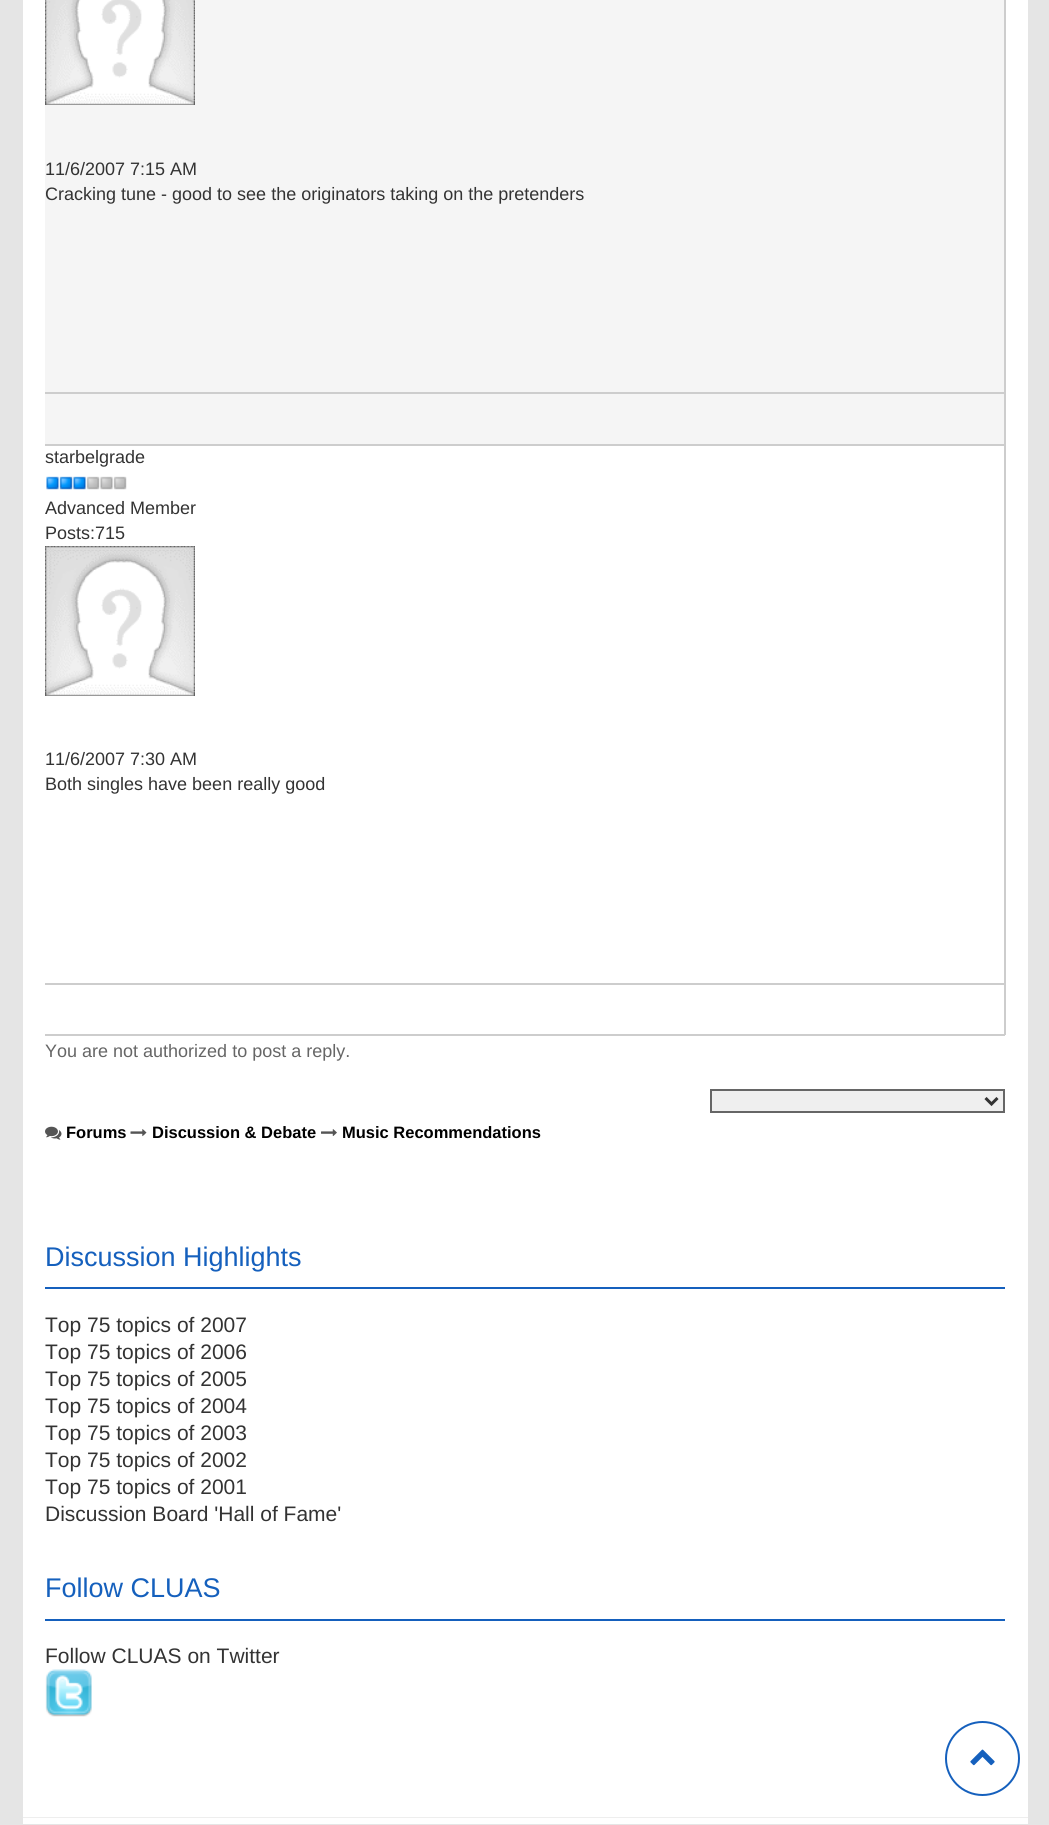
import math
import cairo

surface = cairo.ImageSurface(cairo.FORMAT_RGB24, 1049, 1825)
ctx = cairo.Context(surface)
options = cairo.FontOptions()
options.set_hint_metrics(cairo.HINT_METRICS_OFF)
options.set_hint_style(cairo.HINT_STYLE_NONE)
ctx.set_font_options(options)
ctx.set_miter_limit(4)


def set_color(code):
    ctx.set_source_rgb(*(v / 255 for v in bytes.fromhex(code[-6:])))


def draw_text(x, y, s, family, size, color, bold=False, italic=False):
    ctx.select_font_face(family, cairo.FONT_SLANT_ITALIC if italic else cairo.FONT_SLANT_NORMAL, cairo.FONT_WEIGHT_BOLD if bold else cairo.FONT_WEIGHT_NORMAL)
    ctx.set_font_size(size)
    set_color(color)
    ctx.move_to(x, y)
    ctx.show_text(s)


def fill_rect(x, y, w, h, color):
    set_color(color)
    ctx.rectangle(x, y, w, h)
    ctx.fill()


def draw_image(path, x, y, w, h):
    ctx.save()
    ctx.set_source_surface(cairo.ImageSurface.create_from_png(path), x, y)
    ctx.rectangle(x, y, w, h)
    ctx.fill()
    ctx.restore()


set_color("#e5e5e5")
ctx.paint()
fill_rect(23, 0, 1005, 1817, "#ffffff")
fill_rect(23, 1817, 1005, 1, "#eeeeee")
fill_rect(45, 0, 959, 444, "#f5f5f5")
fill_rect(1004, 0, 2, 446, "#cdcdcd")
fill_rect(45, 444, 960, 2, "#cdcdcd")
draw_image("assets/img1.png", 45, 0, 150, 105)
draw_text(45, 175, "11/6/2007 7:15 AM", "Liberation Sans", 18, "#333333")
draw_text(45, 200, "Cracking tune - good to see the originators taking on the pretenders", "Liberation Sans", 18, "#333333")
fill_rect(45, 392, 959, 2, "#cdcdcd")
fill_rect(1004, 444, 2, 591, "#cdcdcd")
fill_rect(45, 1034, 960, 2, "#cdcdcd")
draw_text(45, 463, "starbelgrade", "Liberation Sans", 18, "#333333")
draw_image("assets/img2.png", 46, 476, 81, 14)
draw_text(45, 514, "Advanced Member", "Liberation Sans", 18, "#333333")
draw_text(45, 539, "Posts:715", "Liberation Sans", 18, "#333333")
draw_image("assets/img3.png", 45, 546, 150, 150)
draw_text(45, 765, "11/6/2007 7:30 AM", "Liberation Sans", 18, "#333333")
draw_text(45, 790, "Both singles have been really good", "Liberation Sans", 18, "#333333")
fill_rect(45, 983, 959, 2, "#cdcdcd")
draw_text(45, 1057, "You are not authorized to post a reply.", "Liberation Sans", 18, "#666666")
set_color("#efefef")
ctx.rectangle(711, 1090, 293, 22)
ctx.fill_preserve()
set_color("#666666")
ctx.stroke()
ctx.new_path()
ctx.move_to(985.5, 1098)
ctx.line_to(991.5, 1104)
ctx.line_to(997.5, 1098)
set_color("#333333")
ctx.set_line_width(3)
ctx.stroke()
draw_image("assets/img4.png", 45, 1126, 17, 14)
draw_text(66, 1138, "Forums", "Liberation Sans", 16.5, "#000000", bold=True)
draw_image("assets/img5.png", 130, 1129, 17, 8)
draw_text(152, 1138, "Discussion & Debate", "Liberation Sans", 16.5, "#000000", bold=True)
draw_image("assets/img6.png", 321, 1129, 16, 7)
draw_text(342, 1138, "Music Recommendations", "Liberation Sans", 16.5, "#000000", bold=True)
fill_rect(45, 1287, 960, 2, "#1560bd")
draw_text(45, 1266, "Discussion Highlights", "Liberation Sans", 27, "#1560bd")
draw_text(45, 1332, "Top 75 topics of 2007", "Liberation Sans", 21, "#333333")
draw_text(45, 1359, "Top 75 topics of 2006", "Liberation Sans", 21, "#333333")
draw_text(45, 1386, "Top 75 topics of 2005", "Liberation Sans", 21, "#333333")
draw_text(45, 1413, "Top 75 topics of 2004", "Liberation Sans", 21, "#333333")
draw_text(45, 1440, "Top 75 topics of 2003", "Liberation Sans", 21, "#333333")
draw_text(45, 1467, "Top 75 topics of 2002", "Liberation Sans", 21, "#333333")
draw_text(45, 1494, "Top 75 topics of 2001", "Liberation Sans", 21, "#333333")
draw_text(45, 1521, "Discussion Board 'Hall of Fame'", "Liberation Sans", 21, "#333333")
fill_rect(45, 1619, 960, 2, "#1560bd")
draw_text(45, 1597, "Follow CLUAS", "Liberation Sans", 27, "#1560bd")
draw_text(45, 1663, "Follow CLUAS on Twitter", "Liberation Sans", 21, "#333333")
draw_image("assets/img7.png", 45, 1669, 47, 48)
ctx.arc(982.5, 1758.5, 36.5, 0, 2 * math.pi)
set_color("#1560bd")
ctx.set_line_width(2)
ctx.stroke()
draw_image("assets/img8.png", 970, 1749, 25, 17)
fill_rect(23, 1818, 1005, 6, "#ffffff")
surface.write_to_png("output.png")
